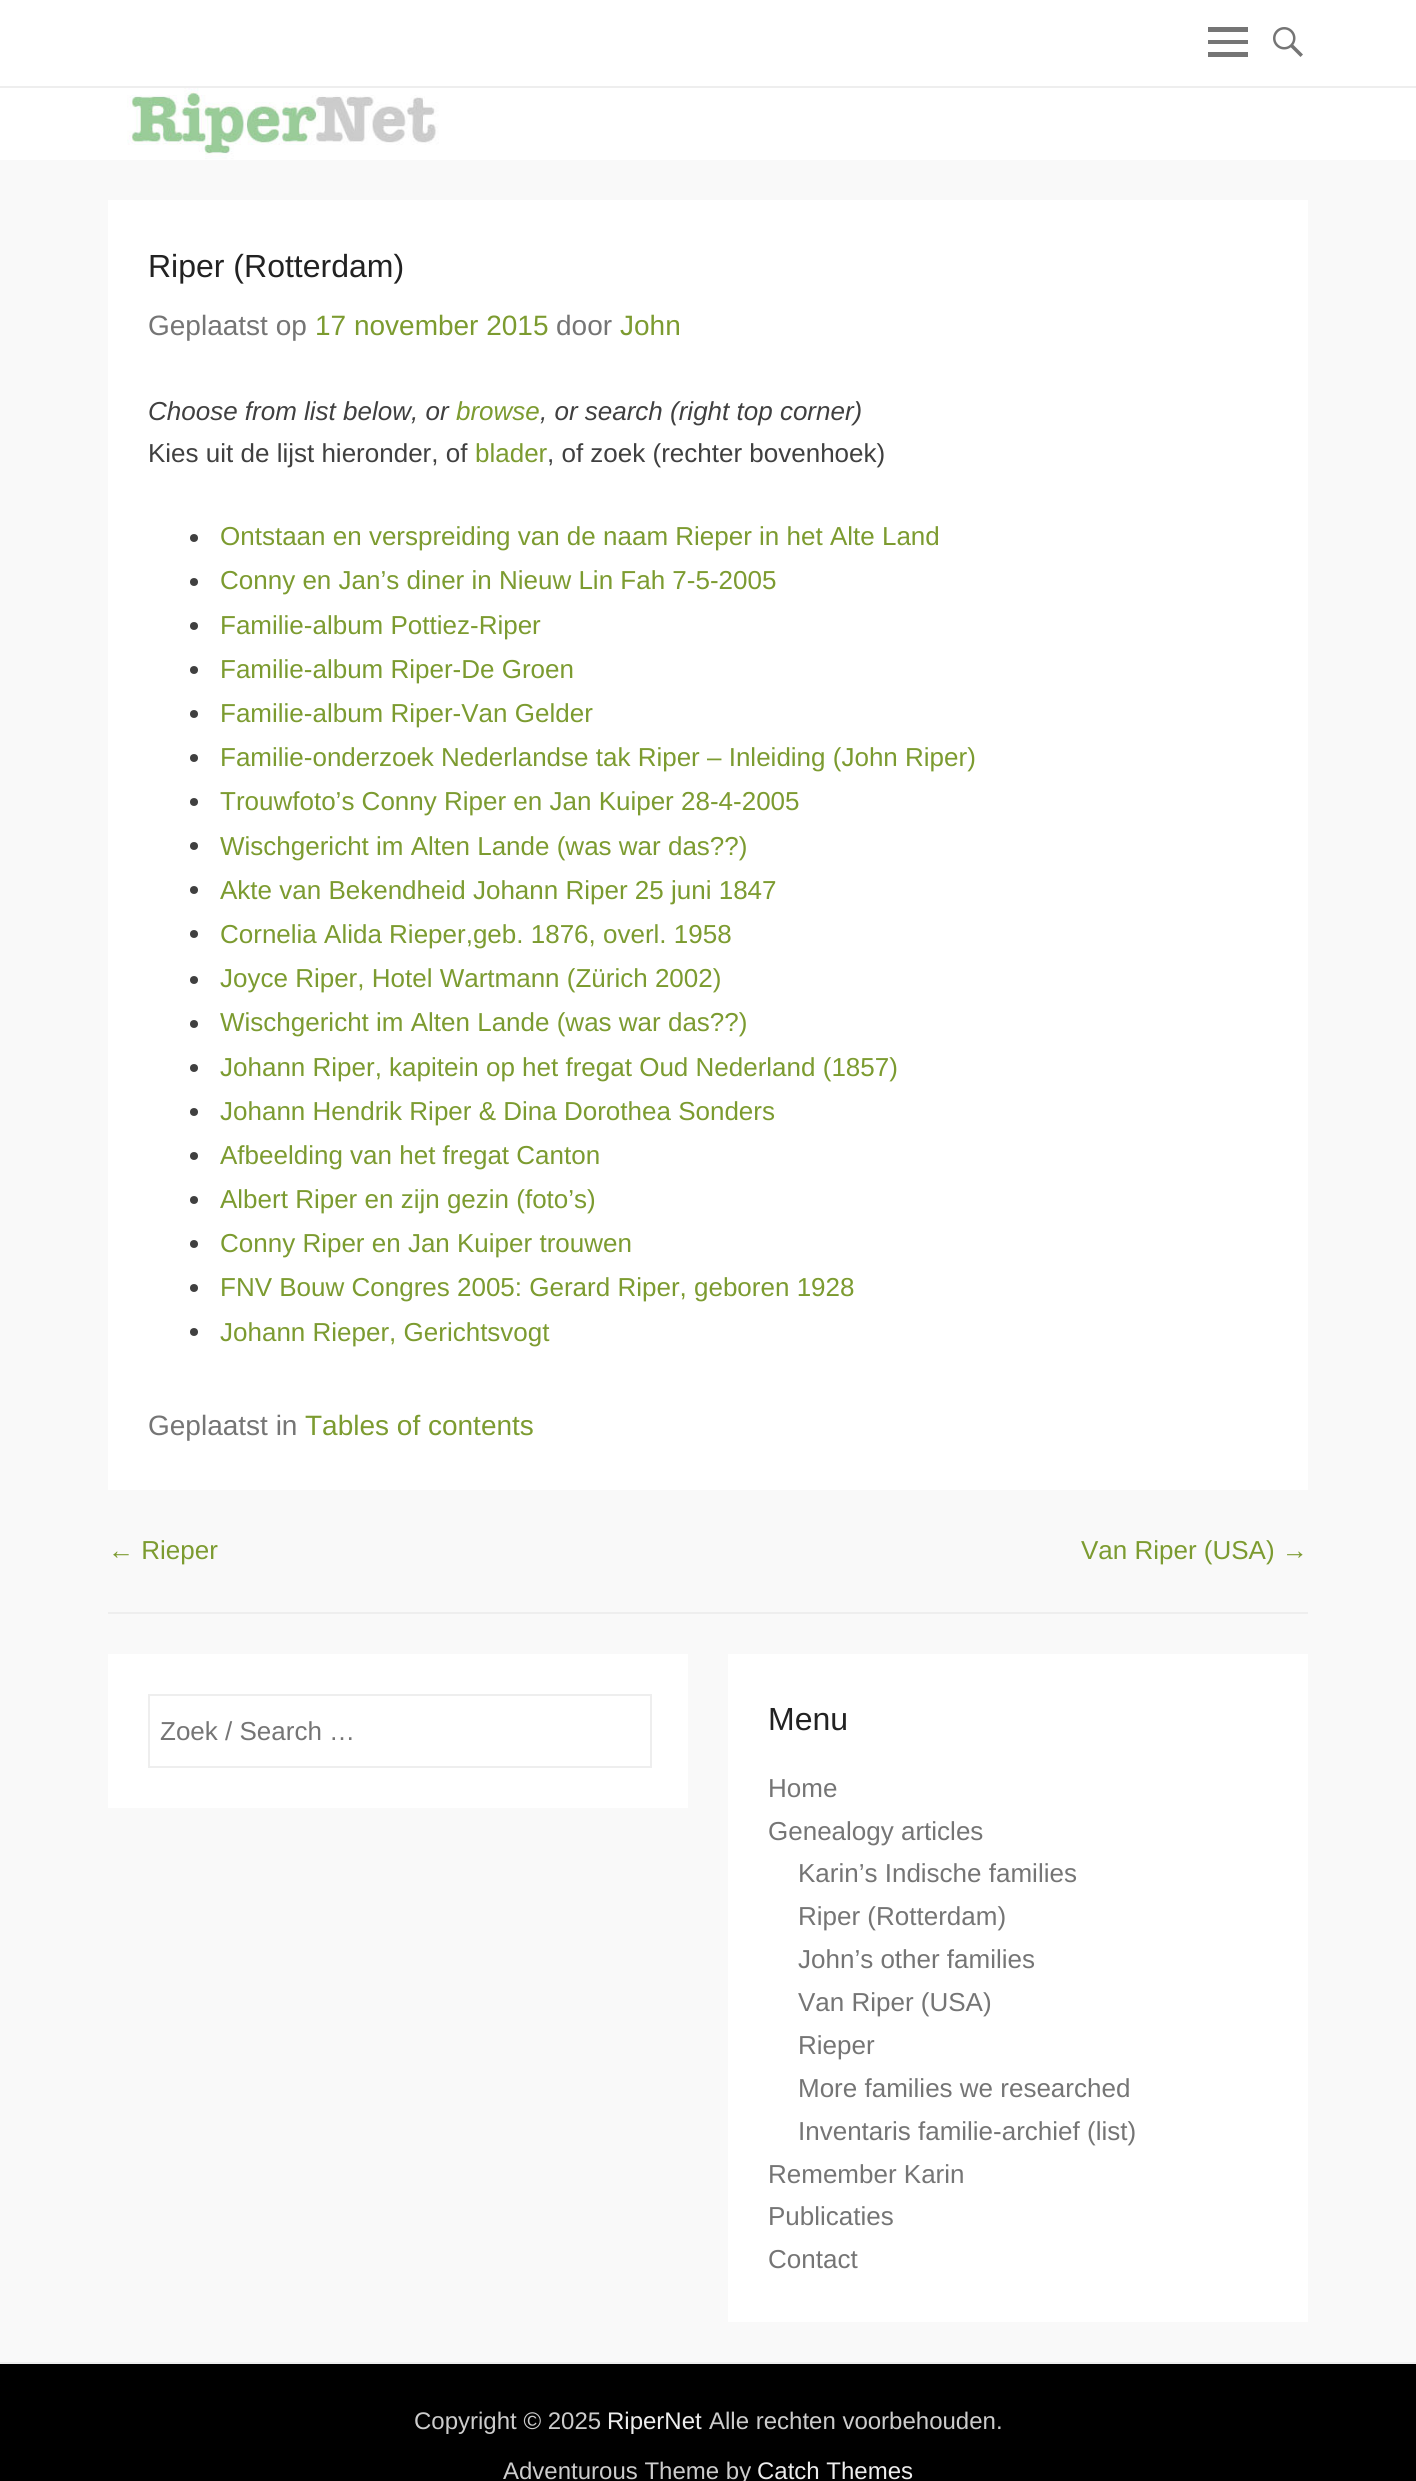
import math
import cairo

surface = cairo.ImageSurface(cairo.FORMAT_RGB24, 1416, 2481)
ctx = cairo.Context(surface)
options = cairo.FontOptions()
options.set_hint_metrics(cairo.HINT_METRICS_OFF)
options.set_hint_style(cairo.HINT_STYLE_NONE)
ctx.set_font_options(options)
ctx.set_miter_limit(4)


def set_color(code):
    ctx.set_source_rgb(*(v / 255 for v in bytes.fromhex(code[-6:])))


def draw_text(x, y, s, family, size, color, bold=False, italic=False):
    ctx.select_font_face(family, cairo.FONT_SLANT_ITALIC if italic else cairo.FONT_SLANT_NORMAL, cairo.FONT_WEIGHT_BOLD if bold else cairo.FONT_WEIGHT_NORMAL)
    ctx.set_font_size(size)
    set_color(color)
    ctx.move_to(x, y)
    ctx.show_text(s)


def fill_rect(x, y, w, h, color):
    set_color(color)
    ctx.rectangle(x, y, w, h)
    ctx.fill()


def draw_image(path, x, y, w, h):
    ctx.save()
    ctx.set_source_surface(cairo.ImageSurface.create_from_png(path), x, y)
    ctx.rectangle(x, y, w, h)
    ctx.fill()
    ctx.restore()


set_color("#f9f9f9")
ctx.paint()
fill_rect(0, 0, 1416, 86, "#ffffff")
fill_rect(0, 86, 1416, 2, "#eeeeee")
set_color("#757575")
ctx.new_path()
ctx.move_to(1208, 57)
ctx.line_to(1208, 52)
ctx.line_to(1248, 52)
ctx.line_to(1248, 57)
ctx.close_path()
ctx.move_to(1208, 27)
ctx.line_to(1248, 27)
ctx.line_to(1248, 32)
ctx.line_to(1208, 32)
ctx.close_path()
ctx.move_to(1208, 44)
ctx.line_to(1208, 40)
ctx.line_to(1248, 40)
ctx.line_to(1248, 44)
ctx.close_path()
ctx.fill()
draw_image("assets/img1.png", 1273, 27, 30, 30)
draw_image("assets/img2.png", 0, 88, 1416, 72)
fill_rect(108, 1612, 1200, 2, "#eeeeee")
fill_rect(108, 200, 1200, 1290, "#ffffff")
draw_text(148, 277, "Riper (Rotterdam)", "Liberation Sans", 32, "#222222")
draw_text(148, 335, "Geplaatst op", "Liberation Sans", 28, "#757575")
draw_text(315, 335, "17 november 2015", "Liberation Sans", 28, "#7c9b30")
draw_text(556, 335, "door", "Liberation Sans", 28, "#757575")
draw_text(620, 335, "John", "Liberation Sans", 28, "#7c9b30")
draw_text(148, 420, "Choose from list below, or", "Liberation Sans", 26, "#404040", italic=True)
draw_text(456, 420, "browse", "Liberation Sans", 26, "#7c9b30", italic=True)
draw_text(540, 420, ", or search (right top corner)", "Liberation Sans", 26, "#404040", italic=True)
draw_text(148, 462, "Kies uit de lijst hieronder, of", "Liberation Sans", 26, "#404040")
draw_text(475, 462, "blader", "Liberation Sans", 26, "#7c9b30")
draw_text(547, 462, ", of zoek (rechter bovenhoek)", "Liberation Sans", 26, "#404040")
ctx.new_path()
ctx.arc(194, 538, 4, 0, 2 * math.pi)
ctx.fill()
draw_text(220, 545, "Ontstaan en verspreiding van de naam Rieper in het Alte Land", "Liberation Sans", 26, "#7c9b30")
set_color("#404040")
ctx.new_path()
ctx.arc(194, 582, 4, 0, 2 * math.pi)
ctx.fill()
draw_text(220, 589, "Conny en Jan’s diner in Nieuw Lin Fah 7-5-2005", "Liberation Sans", 26, "#7c9b30")
set_color("#404040")
ctx.new_path()
ctx.arc(194, 626, 4, 0, 2 * math.pi)
ctx.fill()
draw_text(220, 634, "Familie-album Pottiez-Riper", "Liberation Sans", 26, "#7c9b30")
set_color("#404040")
ctx.new_path()
ctx.arc(194, 670, 4, 0, 2 * math.pi)
ctx.fill()
draw_text(220, 678, "Familie-album Riper-De Groen", "Liberation Sans", 26, "#7c9b30")
set_color("#404040")
ctx.new_path()
ctx.arc(194, 714, 4, 0, 2 * math.pi)
ctx.fill()
draw_text(220, 722, "Familie-album Riper-Van Gelder", "Liberation Sans", 26, "#7c9b30")
set_color("#404040")
ctx.new_path()
ctx.arc(194, 758, 4, 0, 2 * math.pi)
ctx.fill()
draw_text(220, 766, "Familie-onderzoek Nederlandse tak Riper – Inleiding (John Riper)", "Liberation Sans", 26, "#7c9b30")
set_color("#404040")
ctx.new_path()
ctx.arc(194, 802, 4, 0, 2 * math.pi)
ctx.fill()
draw_text(220, 810, "Trouwfoto’s Conny Riper en Jan Kuiper 28-4-2005", "Liberation Sans", 26, "#7c9b30")
set_color("#404040")
ctx.new_path()
ctx.arc(194, 846, 4, 0, 2 * math.pi)
ctx.fill()
draw_text(220, 855, "Wischgericht im Alten Lande (was war das??)", "Liberation Sans", 26, "#7c9b30")
set_color("#404040")
ctx.new_path()
ctx.arc(194, 890, 4, 0, 2 * math.pi)
ctx.fill()
draw_text(220, 899, "Akte van Bekendheid Johann Riper 25 juni 1847", "Liberation Sans", 26, "#7c9b30")
set_color("#404040")
ctx.new_path()
ctx.arc(194, 934, 4, 0, 2 * math.pi)
ctx.fill()
draw_text(220, 943, "Cornelia Alida Rieper,geb. 1876, overl. 1958", "Liberation Sans", 26, "#7c9b30")
set_color("#404040")
ctx.new_path()
ctx.arc(194, 980, 4, 0, 2 * math.pi)
ctx.fill()
draw_text(220, 987, "Joyce Riper, Hotel Wartmann (Zürich 2002)", "Liberation Sans", 26, "#7c9b30")
set_color("#404040")
ctx.new_path()
ctx.arc(194, 1024, 4, 0, 2 * math.pi)
ctx.fill()
draw_text(220, 1031, "Wischgericht im Alten Lande (was war das??)", "Liberation Sans", 26, "#7c9b30")
set_color("#404040")
ctx.new_path()
ctx.arc(194, 1068, 4, 0, 2 * math.pi)
ctx.fill()
draw_text(220, 1076, "Johann Riper, kapitein op het fregat Oud Nederland (1857)", "Liberation Sans", 26, "#7c9b30")
set_color("#404040")
ctx.new_path()
ctx.arc(194, 1112, 4, 0, 2 * math.pi)
ctx.fill()
draw_text(220, 1120, "Johann Hendrik Riper & Dina Dorothea Sonders", "Liberation Sans", 26, "#7c9b30")
set_color("#404040")
ctx.new_path()
ctx.arc(194, 1156, 4, 0, 2 * math.pi)
ctx.fill()
draw_text(220, 1164, "Afbeelding van het fregat Canton", "Liberation Sans", 26, "#7c9b30")
set_color("#404040")
ctx.new_path()
ctx.arc(194, 1200, 4, 0, 2 * math.pi)
ctx.fill()
draw_text(220, 1208, "Albert Riper en zijn gezin (foto’s)", "Liberation Sans", 26, "#7c9b30")
set_color("#404040")
ctx.new_path()
ctx.arc(194, 1244, 4, 0, 2 * math.pi)
ctx.fill()
draw_text(220, 1252, "Conny Riper en Jan Kuiper trouwen", "Liberation Sans", 26, "#7c9b30")
set_color("#404040")
ctx.new_path()
ctx.arc(194, 1288, 4, 0, 2 * math.pi)
ctx.fill()
draw_text(220, 1296, "FNV Bouw Congres 2005: Gerard Riper, geboren 1928", "Liberation Sans", 26, "#7c9b30")
set_color("#404040")
ctx.new_path()
ctx.arc(194, 1332, 4, 0, 2 * math.pi)
ctx.fill()
draw_text(220, 1341, "Johann Rieper, Gerichtsvogt", "Liberation Sans", 26, "#7c9b30")
draw_text(148, 1435, "Geplaatst in", "Liberation Sans", 28, "#757575")
draw_text(305, 1435, "Tables of contents", "Liberation Sans", 28, "#7c9b30")
draw_text(108, 1559, "← Rieper", "Liberation Sans", 26, "#7c9b30")
draw_text(1081, 1559, "Van Riper (USA) →", "Liberation Sans", 26, "#7c9b30")
fill_rect(108, 1654, 580, 154, "#ffffff")
ctx.rectangle(149, 1695, 502, 72)
set_color("#eeeeee")
ctx.stroke()
draw_text(160, 1740, "Zoek / Search …", "Liberation Sans", 26, "#757575")
fill_rect(728, 1654, 580, 668, "#ffffff")
draw_text(768, 1730, "Menu", "Liberation Sans", 32, "#222222")
draw_text(768, 1797, "Home", "Liberation Sans", 26, "#757575")
draw_text(768, 1840, "Genealogy articles", "Liberation Sans", 26, "#757575")
draw_text(798, 1882, "Karin’s Indische families", "Liberation Sans", 26, "#757575")
draw_text(798, 1925, "Riper (Rotterdam)", "Liberation Sans", 26, "#757575")
draw_text(798, 1968, "John’s other families", "Liberation Sans", 26, "#757575")
draw_text(798, 2011, "Van Riper (USA)", "Liberation Sans", 26, "#757575")
draw_text(798, 2054, "Rieper", "Liberation Sans", 26, "#757575")
draw_text(798, 2097, "More families we researched", "Liberation Sans", 26, "#757575")
draw_text(798, 2140, "Inventaris familie-archief (list)", "Liberation Sans", 26, "#757575")
draw_text(768, 2183, "Remember Karin", "Liberation Sans", 26, "#757575")
draw_text(768, 2225, "Publicaties", "Liberation Sans", 26, "#757575")
draw_text(768, 2268, "Contact", "Liberation Sans", 26, "#757575")
fill_rect(0, 2362, 1416, 2, "#eeeeee")
fill_rect(0, 2364, 1416, 117, "#000000")
draw_text(414, 2429, "Copyright © 2025", "Liberation Sans", 24, "#cccccc")
draw_text(607, 2429, "RiperNet", "Liberation Sans", 24, "#eeeeee")
draw_text(709, 2429, "Alle rechten voorbehouden.", "Liberation Sans", 24, "#cccccc")
draw_text(503, 2479, "Adventurous Theme by", "Liberation Sans", 24, "#cccccc")
draw_text(757, 2479, "Catch Themes", "Liberation Sans", 24, "#eeeeee")
surface.write_to_png("output.png")
